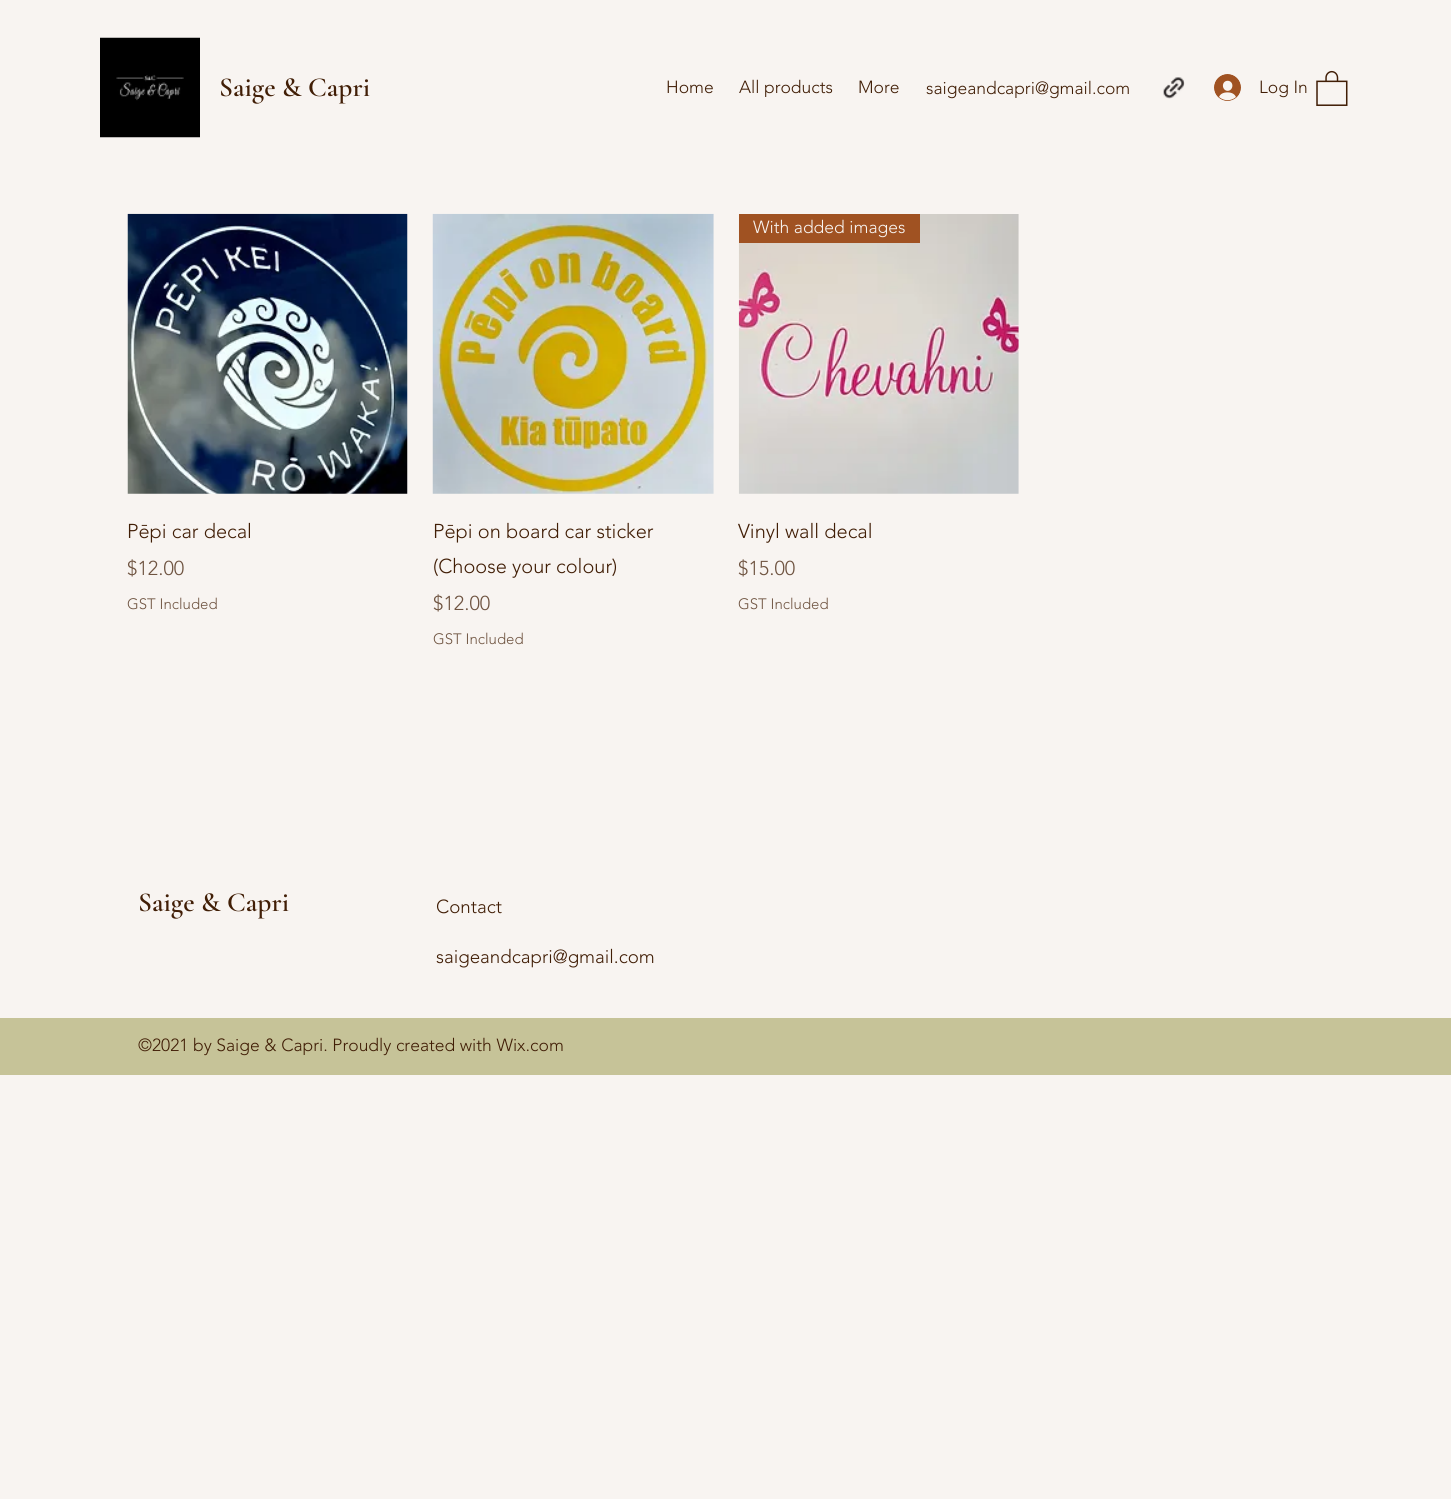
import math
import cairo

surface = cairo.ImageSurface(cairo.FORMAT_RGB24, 1451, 1499)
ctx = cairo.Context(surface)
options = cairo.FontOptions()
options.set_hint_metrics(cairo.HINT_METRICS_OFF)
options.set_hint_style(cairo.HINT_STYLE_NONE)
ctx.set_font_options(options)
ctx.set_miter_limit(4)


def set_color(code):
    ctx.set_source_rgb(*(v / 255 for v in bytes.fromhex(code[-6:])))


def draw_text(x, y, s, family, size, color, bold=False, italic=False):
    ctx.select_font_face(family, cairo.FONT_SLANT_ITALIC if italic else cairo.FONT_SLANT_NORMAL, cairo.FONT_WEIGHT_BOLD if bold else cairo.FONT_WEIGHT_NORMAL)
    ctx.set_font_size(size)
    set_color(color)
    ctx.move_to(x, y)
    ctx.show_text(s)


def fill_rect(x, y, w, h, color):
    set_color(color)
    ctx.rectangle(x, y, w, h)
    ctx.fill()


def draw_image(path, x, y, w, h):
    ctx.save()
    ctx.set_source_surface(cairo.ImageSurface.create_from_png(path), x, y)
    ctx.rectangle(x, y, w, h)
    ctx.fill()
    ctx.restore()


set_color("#f8f4f1")
ctx.paint()
draw_image("assets/img1.png", 100, 37, 100, 101)
draw_text(219, 96, "Saige & Capri", "Cormorant Garamond SemiBold", 27.5, "#411e06")
draw_text(666, 93, "Home", "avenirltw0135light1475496 Light", 17.5, "#411e06")
draw_text(739, 93, "All products", "avenirltw0135light1475496 Light", 17.5, "#411e06")
draw_text(858, 93, "More", "avenirltw0135light1475496 Light", 17.5, "#411e06")
draw_text(926, 94, "saigeandcapri@gmail.com", "avenirltw0135light1475496 Light", 17.5, "#411e06")
draw_image("assets/img2.png", 1163, 77, 22, 22)
draw_image("assets/img3.png", 1214, 74, 27, 27)
draw_text(1259, 93, "Log In", "avenirltw0135light1475496 Light", 17.5, "#411e06")
draw_image("assets/img4.png", 1316, 70, 32, 36)
draw_image("assets/img5.png", 127, 213, 281, 281)
draw_text(127, 538, "Pēpi car decal", "avenirltw0135light1475496 Light", 20, "#411e06")
draw_text(127, 575, "$12.00", "avenirltw0135light1475496 Light", 20, "#6f5441")
draw_text(127, 609, "GST Included", "avenirltw0135light1475496 Light", 15, "#6f5441")
draw_image("assets/img6.png", 432, 213, 282, 281)
draw_text(433, 538, "Pēpi on board car sticker", "avenirltw0135light1475496 Light", 20, "#411e06")
draw_text(433, 573, "(Choose your colour)", "avenirltw0135light1475496 Light", 20, "#411e06")
draw_text(433, 610, "$12.00", "avenirltw0135light1475496 Light", 20, "#6f5441")
draw_text(433, 644, "GST Included", "avenirltw0135light1475496 Light", 15, "#6f5441")
draw_image("assets/img7.png", 738, 214, 281, 280)
fill_rect(739, 214, 181, 29, "#a05222")
draw_text(753, 233, "With added images", "avenirltw0135light1475496 Light", 17.5, "#f8f4f1")
draw_text(738, 538, "Vinyl wall decal", "avenirltw0135light1475496 Light", 20, "#411e06")
draw_text(738, 575, "$15.00", "avenirltw0135light1475496 Light", 20, "#6f5441")
draw_text(738, 609, "GST Included", "avenirltw0135light1475496 Light", 15, "#6f5441")
draw_text(138, 911, "Saige & Capri", "Cormorant Garamond SemiBold", 27.5, "#411e06")
draw_text(436, 913, "Contact", "avenirltw0135light1475496 Light", 18.75, "#411e06")
draw_text(436, 963, "saigeandcapri@gmail.com", "avenirltw0135light1475496 Light", 18.75, "#411e06")
fill_rect(0, 1018, 1451, 57, "#c6c398")
draw_text(138, 1051, "©2021 by Saige & Capri. Proudly created with Wix.com", "avenirltw0135light1475496 Light", 17.5, "#411e06")
surface.write_to_png("output.png")
